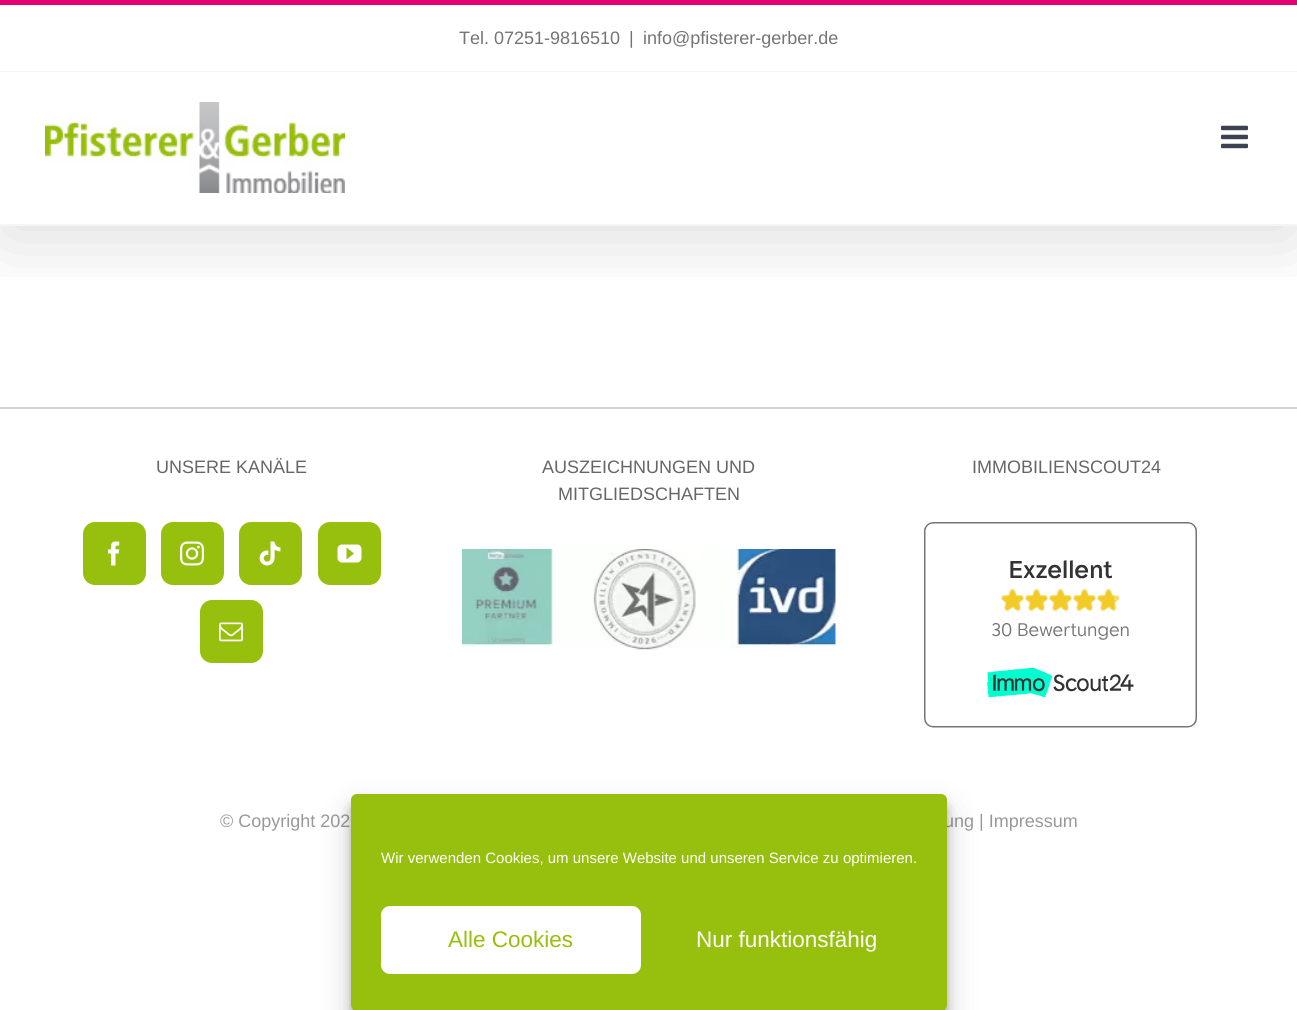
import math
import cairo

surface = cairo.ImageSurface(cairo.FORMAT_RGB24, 1297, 1010)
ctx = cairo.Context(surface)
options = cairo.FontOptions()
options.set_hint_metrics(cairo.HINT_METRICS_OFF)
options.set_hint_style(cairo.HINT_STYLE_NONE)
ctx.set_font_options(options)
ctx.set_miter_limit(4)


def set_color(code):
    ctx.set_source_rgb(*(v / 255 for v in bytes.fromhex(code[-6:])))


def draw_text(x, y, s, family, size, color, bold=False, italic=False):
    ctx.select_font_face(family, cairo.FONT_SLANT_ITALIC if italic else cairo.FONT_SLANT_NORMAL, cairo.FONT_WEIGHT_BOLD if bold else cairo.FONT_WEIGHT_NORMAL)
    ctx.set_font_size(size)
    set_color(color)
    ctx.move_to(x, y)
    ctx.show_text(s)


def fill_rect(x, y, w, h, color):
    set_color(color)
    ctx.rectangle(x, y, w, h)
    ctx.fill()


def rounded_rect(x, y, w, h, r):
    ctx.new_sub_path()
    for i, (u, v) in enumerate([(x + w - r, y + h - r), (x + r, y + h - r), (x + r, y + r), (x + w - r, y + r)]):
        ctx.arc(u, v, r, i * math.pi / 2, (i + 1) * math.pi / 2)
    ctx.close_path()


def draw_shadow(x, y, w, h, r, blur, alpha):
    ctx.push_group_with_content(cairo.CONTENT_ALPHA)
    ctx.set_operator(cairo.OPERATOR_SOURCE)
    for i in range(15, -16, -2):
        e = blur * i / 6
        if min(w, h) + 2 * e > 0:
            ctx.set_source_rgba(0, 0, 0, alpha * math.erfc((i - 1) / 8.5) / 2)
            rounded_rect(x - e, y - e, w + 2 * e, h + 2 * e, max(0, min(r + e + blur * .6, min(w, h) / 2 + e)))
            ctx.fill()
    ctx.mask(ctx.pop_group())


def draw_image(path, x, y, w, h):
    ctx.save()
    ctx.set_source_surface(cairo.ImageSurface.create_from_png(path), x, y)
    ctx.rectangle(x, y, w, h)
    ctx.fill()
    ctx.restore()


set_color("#ffffff")
ctx.paint()
ctx.save()
ctx.rectangle(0, 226, 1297, 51)
ctx.clip()
set_color("#000000")
draw_shadow(3, 18, 1292, 219, 0, 37.5, 0.14)
ctx.restore()
fill_rect(0, 0, 1297, 5, "#e20072")
fill_rect(0, 71, 1297, 1, "#f5f5f5")
draw_text(459, 44, "Tel. 07251-9816510", "Liberation Sans", 18, "#747474")
draw_text(629, 44, "|", "Liberation Sans", 18, "#747474")
draw_text(643, 44, "info@pfisterer-gerber.de", "Liberation Sans", 18, "#747474")
fill_rect(0, 224, 1297, 2, "#f5f5f5")
draw_image("assets/img1.png", 45, 102, 300, 91)
draw_image("assets/img2.png", 1221, 125, 27, 24)
fill_rect(0, 407, 1297, 2, "#d3d3d3")
draw_text(156, 473, "UNSERE KANÄLE", "Liberation Sans", 18, "#666666")
set_color("#97bf0d")
rounded_rect(84, 523, 61, 61, 11)
ctx.fill_preserve()
ctx.stroke()
draw_image("assets/img3.png", 108, 541, 12, 25)
rounded_rect(162, 523, 61, 61, 11)
ctx.fill_preserve()
ctx.stroke()
draw_image("assets/img4.png", 180, 541, 24, 25)
rounded_rect(240, 523, 61, 61, 11)
ctx.fill_preserve()
ctx.stroke()
draw_image("assets/img5.png", 259, 541, 22, 25)
rounded_rect(319, 523, 61, 61, 11)
ctx.fill_preserve()
ctx.stroke()
draw_image("assets/img6.png", 337, 544, 25, 19)
rounded_rect(201, 601, 61, 61, 11)
ctx.fill_preserve()
ctx.stroke()
draw_image("assets/img7.png", 219, 622, 24, 20)
draw_text(542, 473, "AUSZEICHNUNGEN UND", "Liberation Sans", 18, "#666666")
draw_text(558, 500, "MITGLIEDSCHAFTEN", "Liberation Sans", 18, "#666666")
draw_image("assets/img8.png", 462, 549, 374, 101)
draw_text(972, 473, "IMMOBILIENSCOUT24", "Liberation Sans", 18, "#666666")
draw_image("assets/img9.png", 924, 522, 273, 206)
draw_text(220, 827, "© Copyright 202", "Liberation Sans", 18, "#999999")
draw_text(944, 827, "ung | Impressum", "Liberation Sans", 18, "#999999")
set_color("#000000")
draw_shadow(351, 803, 596, 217, 6, 4.5, 0.23)
draw_shadow(351, 809, 596, 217, 6, 15, 0.19)
set_color("#97bf0d")
rounded_rect(351, 794, 596, 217, 6)
ctx.fill()
draw_text(381, 863, "Wir verwenden Cookies, um unsere Website und unseren Service zu optimieren.", "Liberation Sans", 15, "#ffffff")
rounded_rect(382, 907, 258, 66, 8)
ctx.fill_preserve()
ctx.stroke()
draw_text(448, 947, "Alle Cookies", "Liberation Sans", 22.5, "#97bf0d")
draw_text(696, 947, "Nur funktionsfähig", "Liberation Sans", 22.5, "#ffffff")
surface.write_to_png("output.png")
